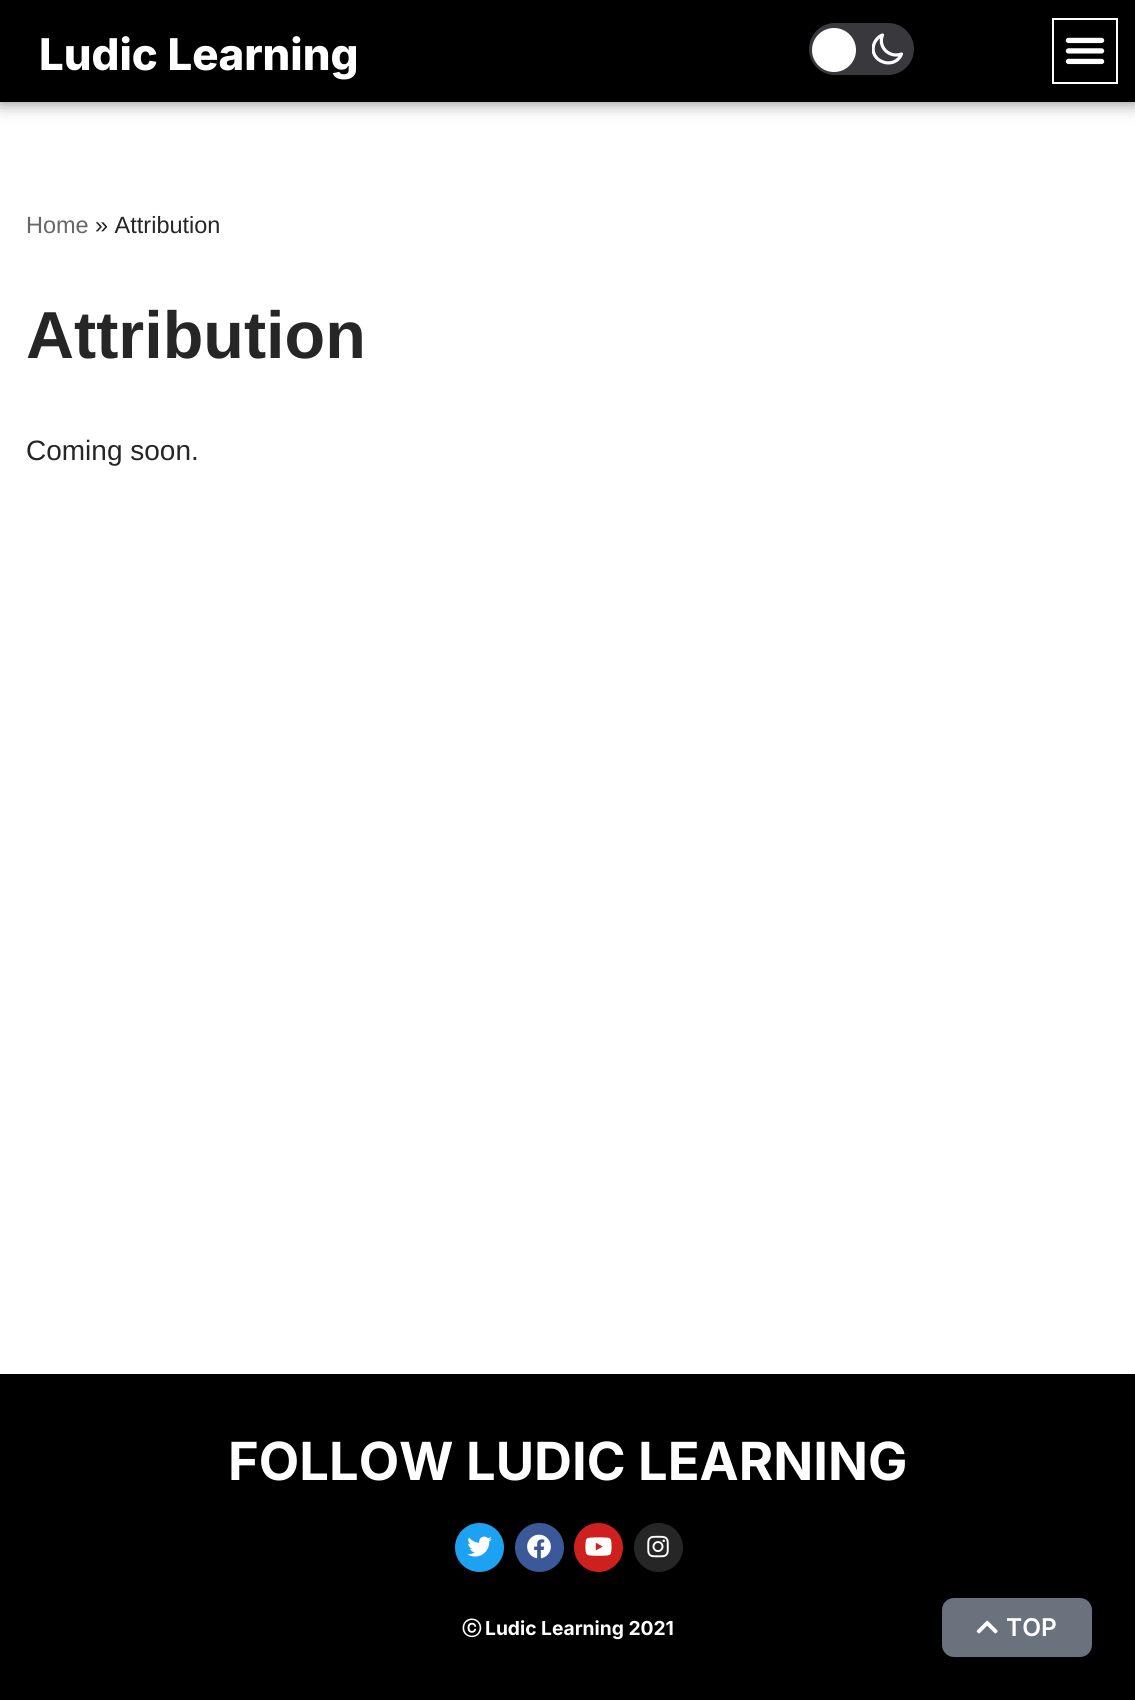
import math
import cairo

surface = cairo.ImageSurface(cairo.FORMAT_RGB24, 1135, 1700)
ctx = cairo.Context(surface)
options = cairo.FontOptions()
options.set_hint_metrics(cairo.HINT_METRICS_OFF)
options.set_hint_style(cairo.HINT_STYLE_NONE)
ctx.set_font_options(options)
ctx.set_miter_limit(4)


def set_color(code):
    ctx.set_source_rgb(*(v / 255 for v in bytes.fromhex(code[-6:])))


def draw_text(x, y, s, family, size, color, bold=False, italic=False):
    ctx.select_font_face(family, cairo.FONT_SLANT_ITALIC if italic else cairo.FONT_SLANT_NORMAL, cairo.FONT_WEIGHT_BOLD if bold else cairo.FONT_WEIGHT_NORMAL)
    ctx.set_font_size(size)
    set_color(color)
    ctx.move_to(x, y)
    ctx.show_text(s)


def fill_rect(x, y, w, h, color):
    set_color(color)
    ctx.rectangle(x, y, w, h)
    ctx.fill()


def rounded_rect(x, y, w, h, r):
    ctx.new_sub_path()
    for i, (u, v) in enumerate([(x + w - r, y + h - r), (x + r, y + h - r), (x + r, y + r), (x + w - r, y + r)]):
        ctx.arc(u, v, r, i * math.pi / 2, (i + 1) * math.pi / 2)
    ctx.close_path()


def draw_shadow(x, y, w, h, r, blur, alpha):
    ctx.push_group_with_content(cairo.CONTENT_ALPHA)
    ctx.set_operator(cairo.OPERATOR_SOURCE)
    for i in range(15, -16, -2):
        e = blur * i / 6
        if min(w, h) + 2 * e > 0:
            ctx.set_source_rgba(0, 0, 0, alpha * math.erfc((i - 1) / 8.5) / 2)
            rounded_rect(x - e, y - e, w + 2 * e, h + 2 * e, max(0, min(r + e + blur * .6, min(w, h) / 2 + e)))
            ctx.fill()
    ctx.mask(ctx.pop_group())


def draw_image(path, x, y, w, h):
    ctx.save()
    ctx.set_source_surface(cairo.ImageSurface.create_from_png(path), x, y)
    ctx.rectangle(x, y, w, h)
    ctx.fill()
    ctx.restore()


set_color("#ffffff")
ctx.paint()
set_color("#000000")
draw_shadow(0, 0, 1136, 102, 0, 9, 0.5)
fill_rect(0, 0, 1135, 102, "#000000")
set_color("#39393d")
rounded_rect(809, 23, 105, 52, 26)
ctx.fill()
set_color("#ffffff")
ctx.arc(834, 50, 22, 0, 2 * math.pi)
ctx.fill()
ctx.save()
ctx.rectangle(872, 33, 31, 32)
ctx.clip()
ctx.new_path()
ctx.move_to(901.5, 54)
ctx.curve_to(889.5, 58.5, 877.5, 47, 882.5, 35)
ctx.curve_to(878.5, 36.5, 875.5, 40, 874, 44)
ctx.curve_to(868, 61.5, 894.5, 71, 901.5, 54)
ctx.close_path()
ctx.set_line_width(3.2)
ctx.set_line_cap(cairo.LINE_CAP_ROUND)
ctx.set_line_join(cairo.LINE_JOIN_ROUND)
ctx.stroke()
ctx.restore()
ctx.rectangle(1053, 19, 64, 64)
ctx.stroke()
draw_image("assets/img1.png", 1065, 37, 40, 28)
draw_text(39, 70, "Ludic Learning", "Inter ExtraBold", 43.75, "#ffffff")
fill_rect(0, 1374, 1135, 326, "#000000")
set_color("#69727d")
rounded_rect(942, 1598, 150, 59, 12)
ctx.fill()
draw_image("assets/img2.png", 976, 1620, 22, 14)
draw_text(1006, 1636, "TOP", "Inter SemiBold", 24.5, "#ffffff")
draw_text(26, 233, "Home", "Liberation Sans", 23.5, "#676767")
draw_text(95, 233, "» Attribution", "Liberation Sans", 23.5, "#272626")
draw_text(26, 358, "Attribution", "Liberation Sans", 66.5, "#272626", bold=True)
draw_text(26, 460, "Coming soon.", "Liberation Sans", 28, "#272626")
draw_text(228, 1480, "FOLLOW LUDIC LEARNING", "Inter", 52.5, "#ffffff", bold=True)
set_color("#1da1f2")
ctx.new_path()
ctx.arc(479.5, 1547.5, 24.5, 0, 2 * math.pi)
ctx.fill()
draw_image("assets/img3.png", 467, 1536, 25, 21)
set_color("#3b5998")
ctx.arc(539.5, 1547.5, 24.5, 0, 2 * math.pi)
ctx.fill()
draw_image("assets/img4.png", 527, 1534, 24, 25)
set_color("#cd201f")
ctx.arc(598.5, 1547.5, 24.5, 0, 2 * math.pi)
ctx.fill()
draw_image("assets/img5.png", 585, 1537, 27, 19)
set_color("#262626")
ctx.arc(658.5, 1547.5, 24.5, 0, 2 * math.pi)
ctx.fill()
draw_image("assets/img6.png", 647, 1535, 22, 23)
draw_text(462, 1635, "ⓒ", "WenQuanYi Zen Hei", 19.25, "#ffffff", bold=True)
draw_text(485, 1635, "Ludic Learning 2021", "Inter", 19.25, "#ffffff", bold=True)
surface.write_to_png("output.png")
